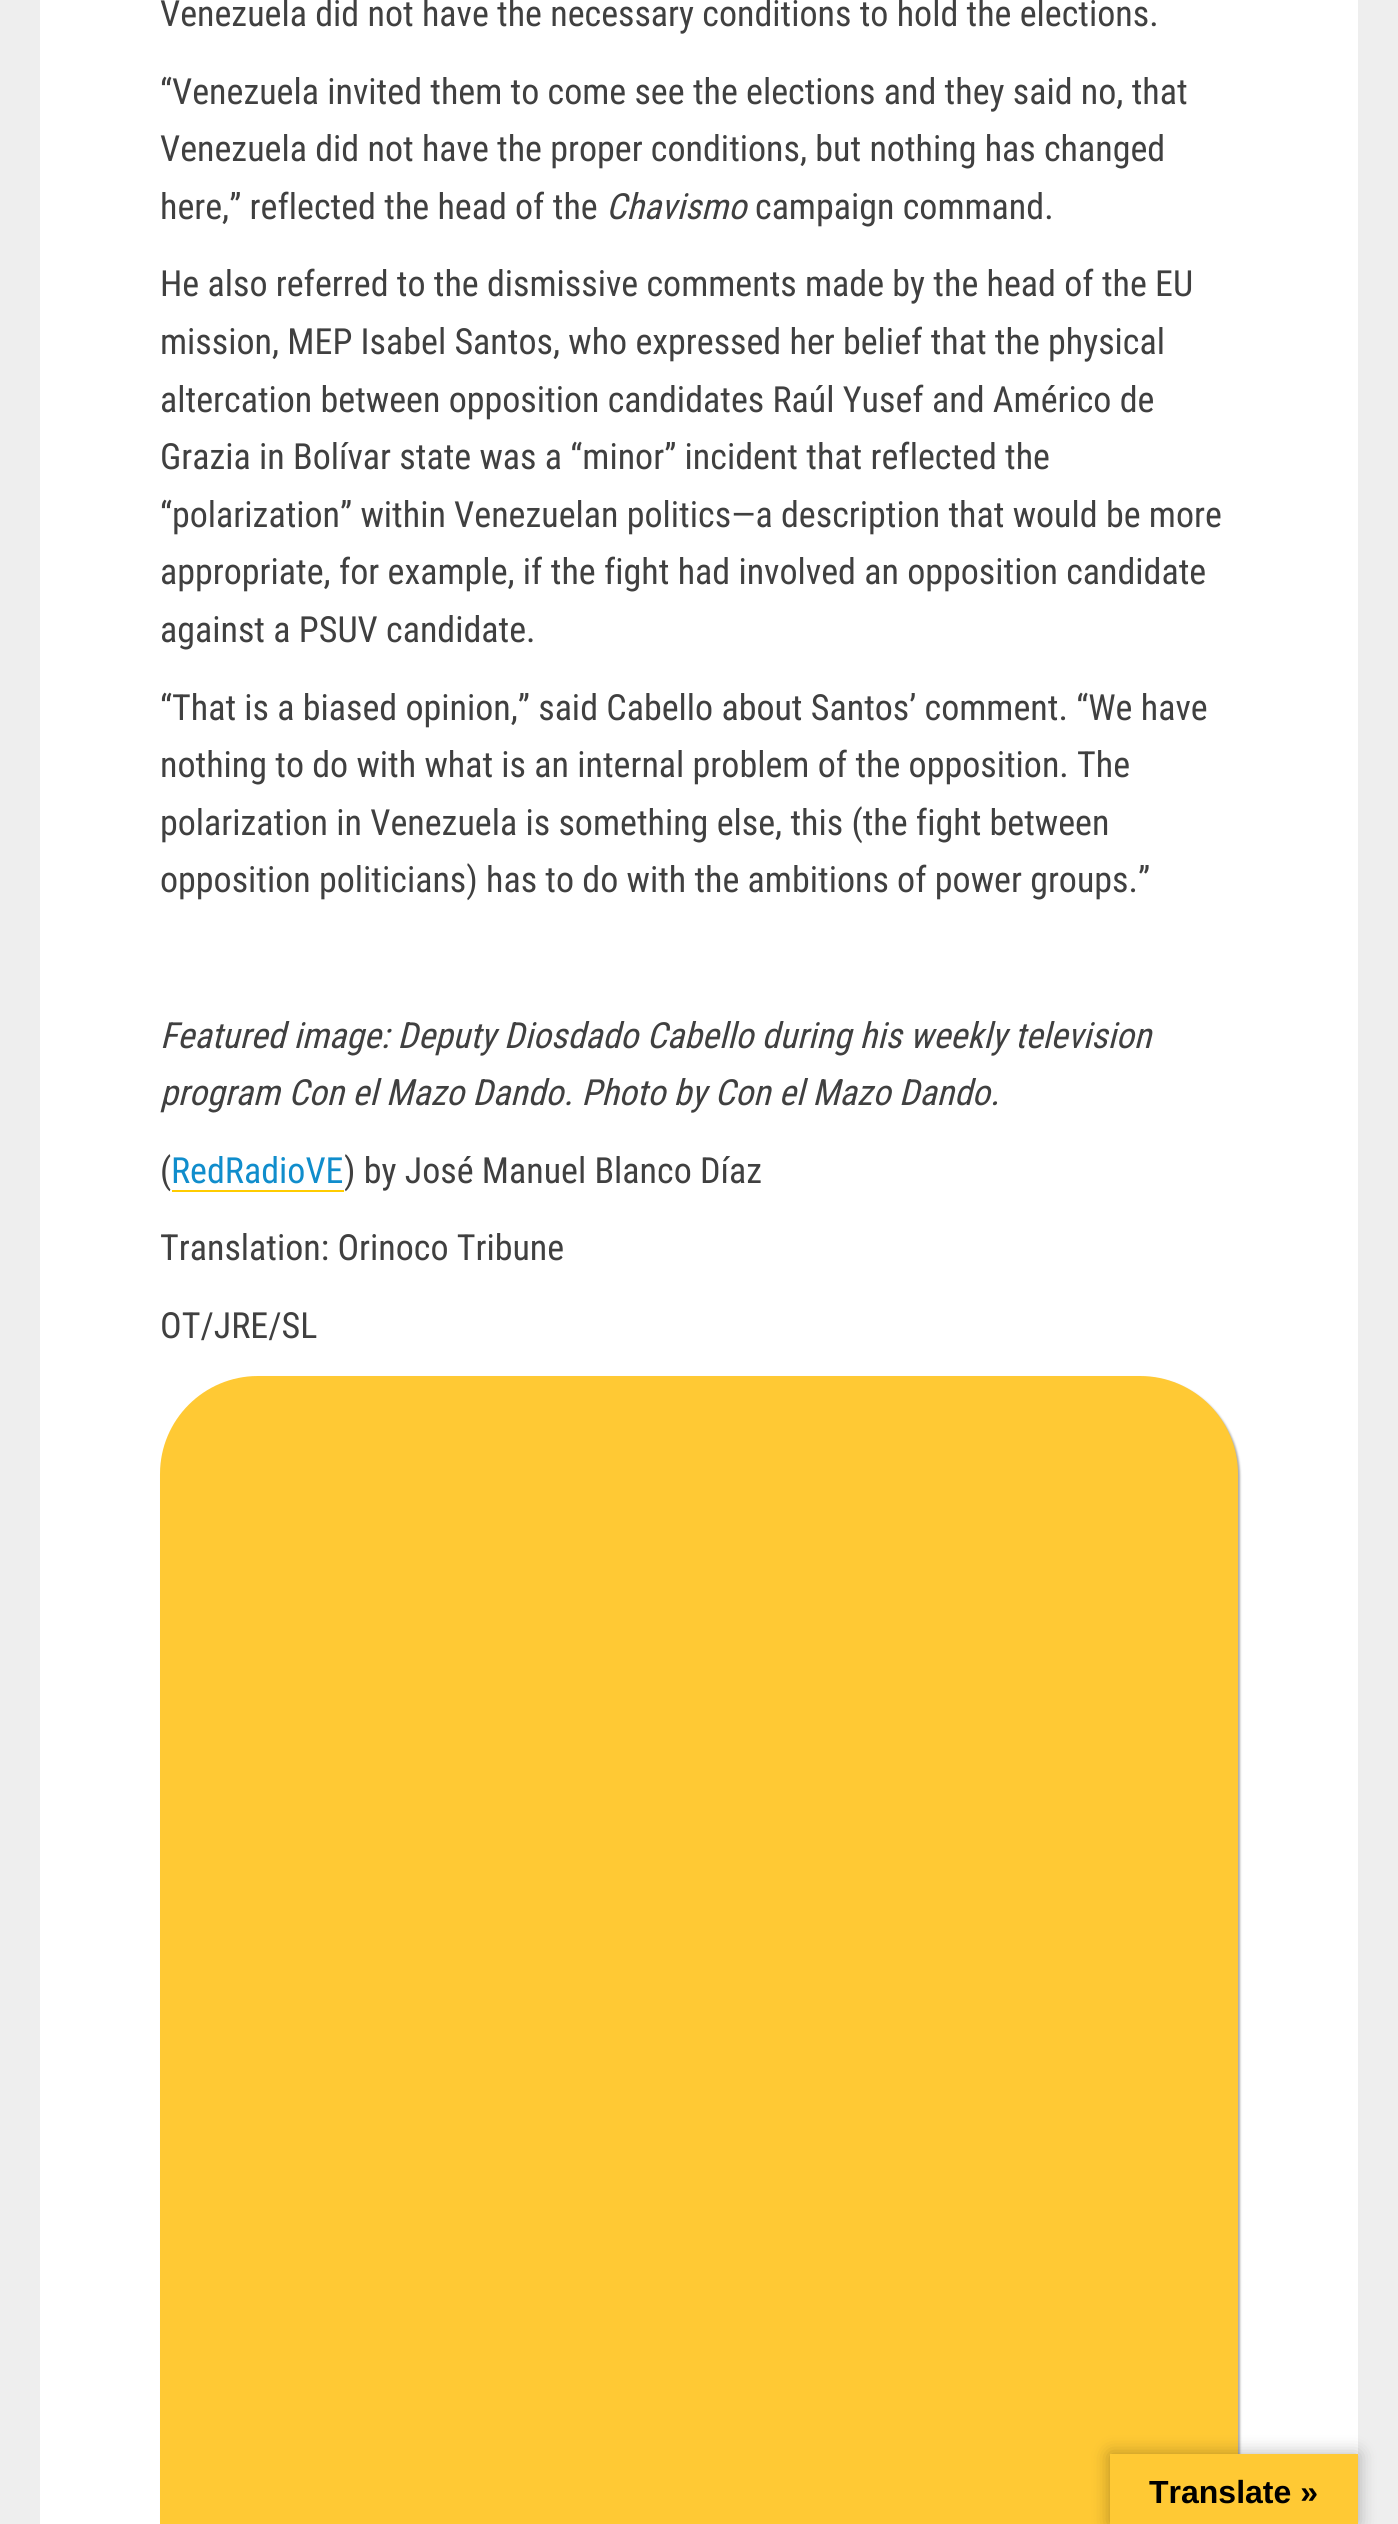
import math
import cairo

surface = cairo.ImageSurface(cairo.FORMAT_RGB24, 1398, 2524)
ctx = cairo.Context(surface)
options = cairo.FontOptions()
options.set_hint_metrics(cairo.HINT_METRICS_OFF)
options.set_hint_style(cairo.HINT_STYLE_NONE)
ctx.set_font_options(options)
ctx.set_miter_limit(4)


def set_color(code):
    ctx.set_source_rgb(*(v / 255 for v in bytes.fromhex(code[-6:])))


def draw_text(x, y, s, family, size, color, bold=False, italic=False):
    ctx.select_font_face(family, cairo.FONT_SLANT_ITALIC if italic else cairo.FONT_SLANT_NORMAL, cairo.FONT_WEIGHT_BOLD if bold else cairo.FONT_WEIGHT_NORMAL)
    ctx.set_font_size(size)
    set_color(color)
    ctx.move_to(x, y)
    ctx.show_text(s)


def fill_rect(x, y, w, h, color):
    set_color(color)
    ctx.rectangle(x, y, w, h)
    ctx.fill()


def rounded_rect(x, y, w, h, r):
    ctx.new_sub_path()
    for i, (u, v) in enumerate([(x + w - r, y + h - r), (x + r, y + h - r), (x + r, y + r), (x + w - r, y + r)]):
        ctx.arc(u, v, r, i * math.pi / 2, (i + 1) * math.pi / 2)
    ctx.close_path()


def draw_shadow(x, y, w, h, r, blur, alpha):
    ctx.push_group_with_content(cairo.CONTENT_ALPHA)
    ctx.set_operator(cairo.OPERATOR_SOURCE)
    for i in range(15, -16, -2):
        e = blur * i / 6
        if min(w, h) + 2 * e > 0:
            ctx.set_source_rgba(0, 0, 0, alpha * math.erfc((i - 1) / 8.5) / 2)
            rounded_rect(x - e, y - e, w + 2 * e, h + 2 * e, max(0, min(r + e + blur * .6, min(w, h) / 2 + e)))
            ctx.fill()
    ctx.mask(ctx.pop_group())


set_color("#eeeeee")
ctx.paint()
fill_rect(40, 0, 1318, 2524, "#ffffff")
draw_text(160, 26, "Venezuela did not have the necessary conditions to hold the elections.", "Roboto Condensed", 36, "#404040")
draw_text(160, 104, "“Venezuela invited them to come see the elections and they said no, that", "Roboto Condensed", 36, "#404040")
draw_text(160, 161, "Venezuela did not have the proper conditions, but nothing has changed", "Roboto Condensed", 36, "#404040")
draw_text(160, 219, "here,” reflected the head of the", "Roboto Condensed", 36, "#404040")
draw_text(606, 219, "Chavismo", "Roboto Condensed", 36, "#404040", italic=True)
draw_text(755, 219, "campaign command.", "Roboto Condensed", 36, "#404040")
draw_text(160, 296, "He also referred to the dismissive comments made by the head of the EU", "Roboto Condensed", 36, "#404040")
draw_text(160, 354, "mission, MEP Isabel Santos, who expressed her belief that the physical", "Roboto Condensed", 36, "#404040")
draw_text(160, 412, "altercation between opposition candidates Raúl Yusef and Américo de", "Roboto Condensed", 36, "#404040")
draw_text(160, 469, "Grazia in Bolívar state was a “minor” incident that reflected the", "Roboto Condensed", 36, "#404040")
draw_text(160, 527, "“polarization” within Venezuelan politics—a description that would be more", "Roboto Condensed", 36, "#404040")
draw_text(160, 584, "appropriate, for example, if the fight had involved an opposition candidate", "Roboto Condensed", 36, "#404040")
draw_text(160, 642, "against a PSUV candidate.", "Roboto Condensed", 36, "#404040")
draw_text(160, 720, "“That is a biased opinion,” said Cabello about Santos’ comment. “We have", "Roboto Condensed", 36, "#404040")
draw_text(160, 777, "nothing to do with what is an internal problem of the opposition. The", "Roboto Condensed", 36, "#404040")
draw_text(160, 835, "polarization in Venezuela is something else, this (the fight between", "Roboto Condensed", 36, "#404040")
draw_text(160, 892, "opposition politicians) has to do with the ambitions of power groups.”", "Roboto Condensed", 36, "#404040")
draw_text(160, 1048, "Featured image: Deputy Diosdado Cabello during his weekly television", "Roboto Condensed", 36, "#404040", italic=True)
draw_text(160, 1105, "program Con el Mazo Dando. Photo by Con el Mazo Dando.", "Roboto Condensed", 36, "#404040", italic=True)
draw_text(160, 1183, "(", "Roboto Condensed", 36, "#404040")
draw_text(171, 1183, "RedRadioVE", "Roboto Condensed", 36, "#108dcc")
fill_rect(172, 1190, 172, 2, "#ffcc00")
draw_text(344, 1183, ") by José Manuel Blanco Díaz", "Roboto Condensed", 36, "#404040")
draw_text(160, 1260, "Translation: Orinoco Tribune", "Roboto Condensed", 36, "#404040")
draw_text(160, 1338, "OT/JRE/SL", "Roboto Condensed", 36, "#404040")
set_color("#ababab")
draw_shadow(162, 1378, 1078, 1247, 98, 1, 1)
set_color("#ffc934")
rounded_rect(160, 1376, 1078, 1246, 98)
ctx.fill()
set_color("#000000")
draw_shadow(1110, 2454, 248, 70, 0, 9, 0.3)
fill_rect(1110, 2454, 248, 70, "#ffc934")
draw_text(1149, 2503, "Translate »", "Liberation Sans", 32, "#000000", bold=True)
surface.write_to_png("output.png")
